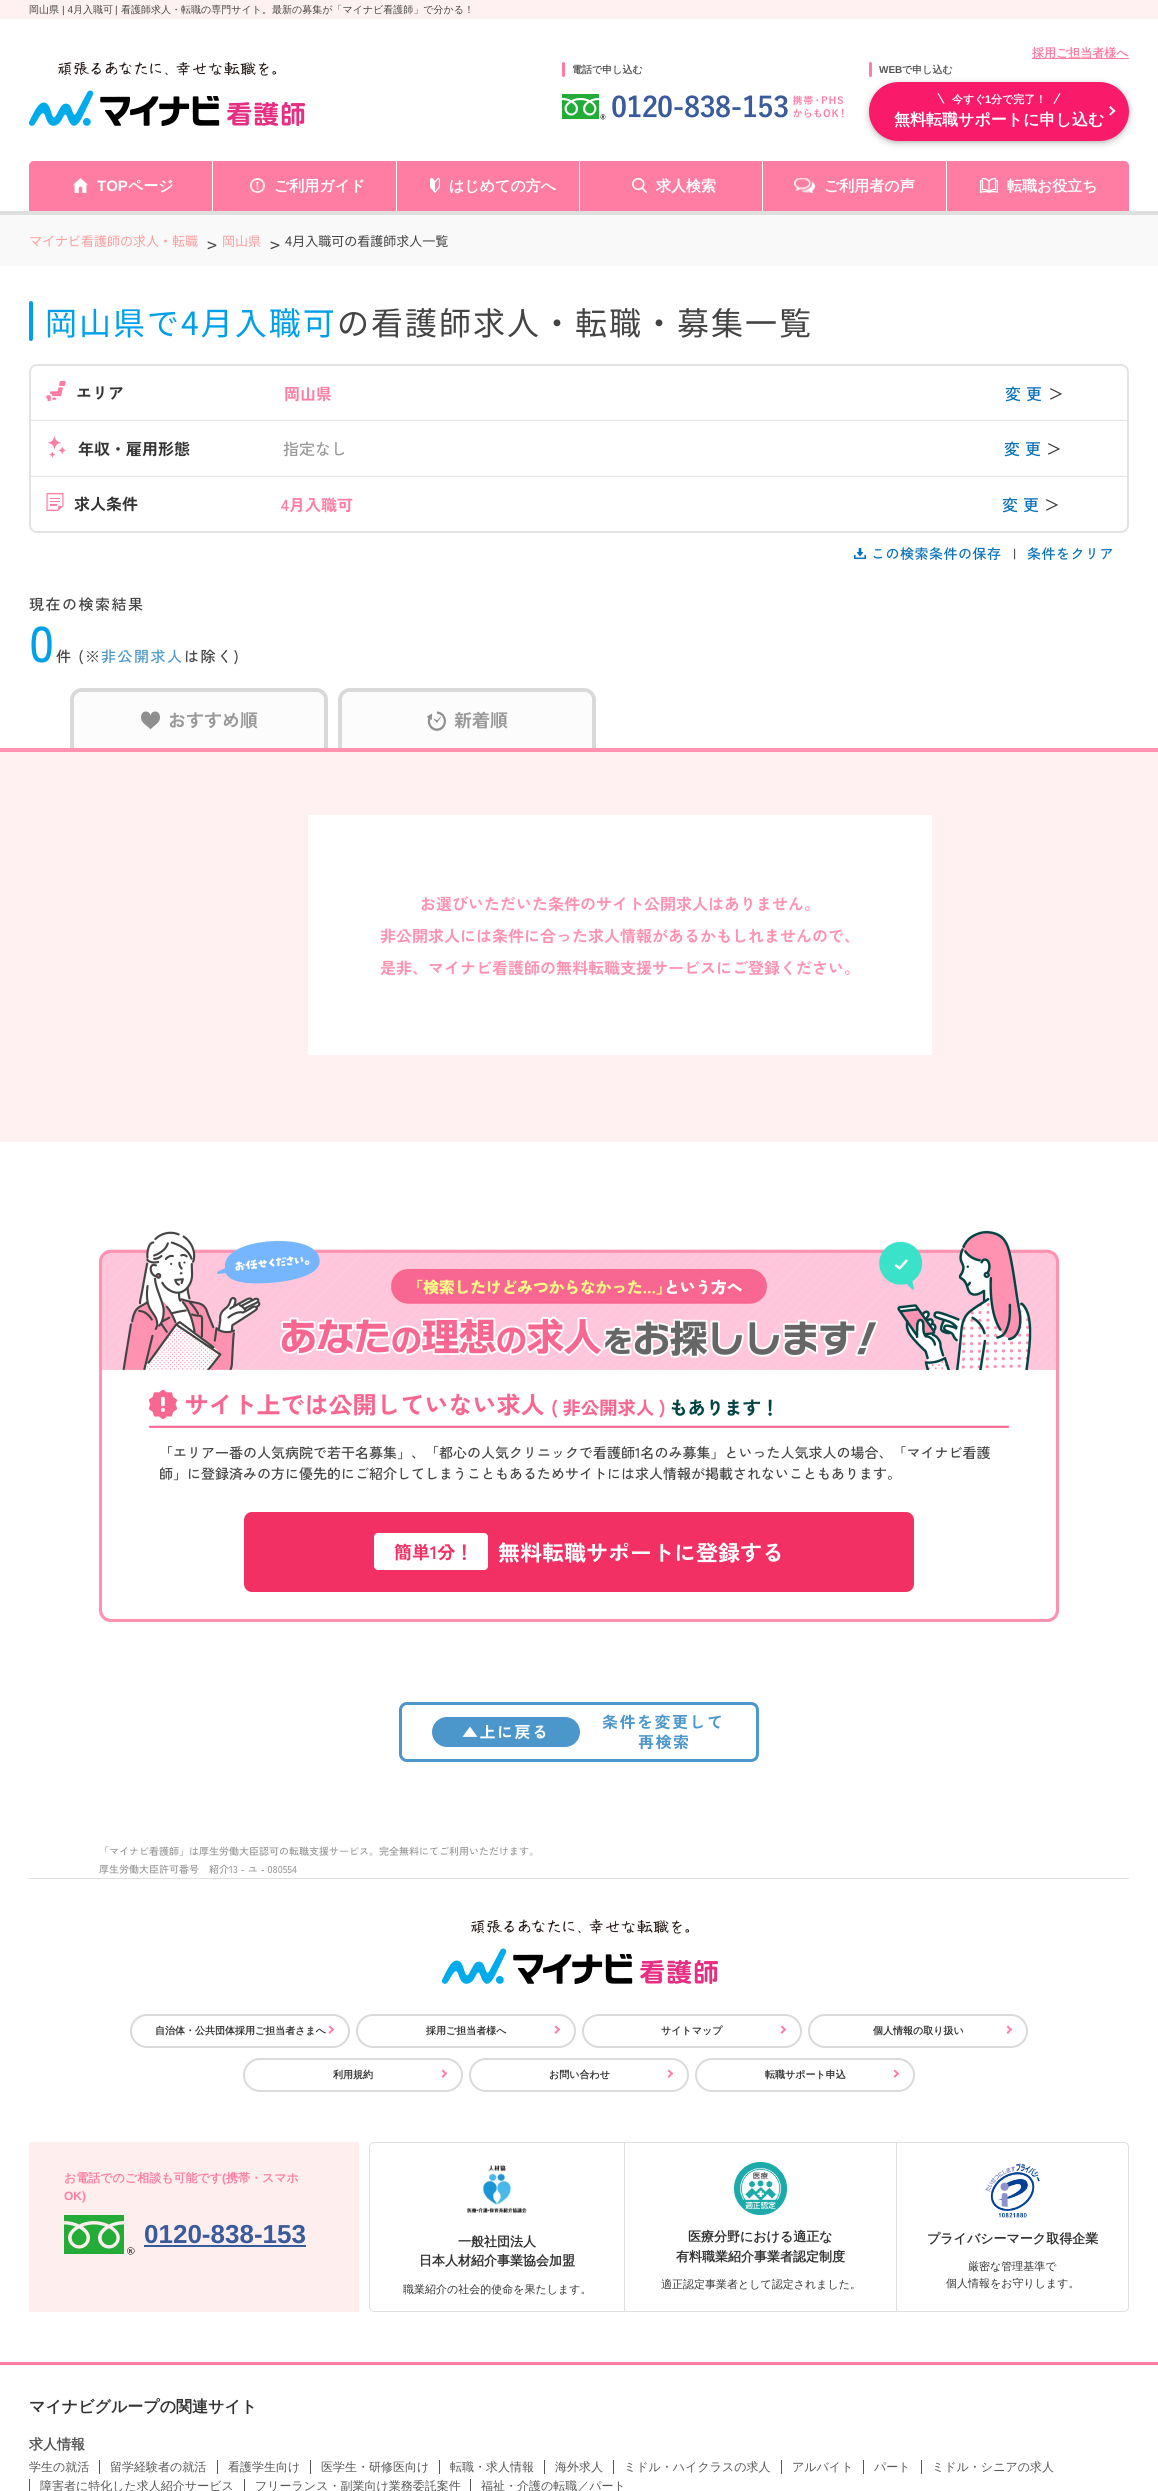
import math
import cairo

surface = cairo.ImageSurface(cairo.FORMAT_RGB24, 1158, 2491)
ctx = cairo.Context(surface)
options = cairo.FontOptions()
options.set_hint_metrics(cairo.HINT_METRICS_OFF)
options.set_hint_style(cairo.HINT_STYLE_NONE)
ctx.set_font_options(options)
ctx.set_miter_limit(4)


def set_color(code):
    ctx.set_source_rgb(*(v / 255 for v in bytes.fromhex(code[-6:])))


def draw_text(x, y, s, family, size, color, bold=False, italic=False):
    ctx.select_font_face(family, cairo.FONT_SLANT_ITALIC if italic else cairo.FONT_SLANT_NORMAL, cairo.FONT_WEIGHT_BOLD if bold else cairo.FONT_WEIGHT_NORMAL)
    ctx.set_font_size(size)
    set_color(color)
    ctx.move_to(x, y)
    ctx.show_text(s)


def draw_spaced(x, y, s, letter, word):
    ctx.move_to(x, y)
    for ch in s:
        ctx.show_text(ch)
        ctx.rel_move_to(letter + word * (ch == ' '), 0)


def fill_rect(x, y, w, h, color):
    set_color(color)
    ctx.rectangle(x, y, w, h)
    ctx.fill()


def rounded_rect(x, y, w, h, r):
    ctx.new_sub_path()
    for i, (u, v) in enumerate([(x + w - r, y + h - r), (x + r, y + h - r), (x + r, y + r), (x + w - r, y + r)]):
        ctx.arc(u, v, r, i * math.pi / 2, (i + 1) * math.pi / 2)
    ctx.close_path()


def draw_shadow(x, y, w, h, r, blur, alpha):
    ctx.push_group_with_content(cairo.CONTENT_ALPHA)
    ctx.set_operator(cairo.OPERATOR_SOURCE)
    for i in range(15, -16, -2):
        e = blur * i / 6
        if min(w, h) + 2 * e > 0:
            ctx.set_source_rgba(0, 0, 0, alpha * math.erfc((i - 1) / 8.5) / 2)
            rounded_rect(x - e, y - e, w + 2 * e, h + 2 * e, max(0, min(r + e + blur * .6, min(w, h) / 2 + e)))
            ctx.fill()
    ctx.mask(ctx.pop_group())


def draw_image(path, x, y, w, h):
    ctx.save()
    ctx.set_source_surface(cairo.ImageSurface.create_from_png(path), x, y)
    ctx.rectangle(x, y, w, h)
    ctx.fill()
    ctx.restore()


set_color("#ffffff")
ctx.paint()
fill_rect(0, 0, 1158, 19, "#fff1f1")
draw_text(29, 13, "岡山県", "WenQuanYi Zen Hei Medium", 10, "#444444")
draw_text(62, 13, "| 4", "Liberation Sans", 10, "#444444")
draw_text(73, 13, "月入職可", "WenQuanYi Zen Hei Medium", 10, "#444444")
draw_text(115, 13, "|", "Liberation Sans", 10, "#444444")
draw_text(121, 13, "看護師求人・転職の専門サイト。最新の募集が「マイナビ看護師」で分かる！", "WenQuanYi Zen Hei Medium", 10, "#444444")
fill_rect(1032, 58, 97, 1, "#ff7da3")
draw_text(1032, 57, "採用ご担当者様へ", "WenQuanYi Zen Hei", 12, "#ff7da3", bold=True)
draw_image("assets/img1.png", 29, 62, 276, 64)
rounded_rect(562, 62, 3, 15, 1.5)
ctx.fill()
draw_text(572, 73, "電話で申し込む", "WenQuanYi Zen Hei", 10, "#555555", bold=True)
draw_image("assets/img2.png", 562, 94, 282, 26)
set_color("#ff7da3")
rounded_rect(869, 62, 3, 15, 1.5)
ctx.fill()
draw_text(879, 73, "WEB", "Liberation Sans", 10, "#555555", bold=True)
draw_text(902, 73, "で申し込む", "WenQuanYi Zen Hei", 10, "#555555", bold=True)
set_color("#909090")
draw_shadow(871, 86, 256, 55, 27.5, 4, 1)
set_color("#f91a69")
rounded_rect(869, 82, 260, 59, 29.5)
ctx.fill()
set_color("#ffffff")
ctx.new_path()
ctx.move_to(937.5, 93.5)
ctx.line_to(938.5, 93)
ctx.line_to(944.5, 103.5)
ctx.line_to(943.5, 104)
ctx.close_path()
ctx.fill()
draw_text(952, 103, "今すぐ", "WenQuanYi Zen Hei", 11, "#ffffff", bold=True)
draw_text(985, 103, "1", "Liberation Sans", 11, "#ffffff", bold=True)
draw_text(991, 103, "分で完了！", "WenQuanYi Zen Hei", 11, "#ffffff", bold=True)
ctx.new_path()
ctx.move_to(1059.5, 93)
ctx.line_to(1060.5, 93.5)
ctx.line_to(1054.5, 104)
ctx.line_to(1053.5, 103.5)
ctx.close_path()
ctx.move_to(1110.5, 106)
ctx.line_to(1115.5, 111)
ctx.line_to(1114, 112)
ctx.line_to(1109, 107.5)
ctx.close_path()
ctx.fill()
draw_text(894, 125, "無料転職サポートに申し込む", "WenQuanYi Zen Hei", 16, "#ffffff", bold=True)
ctx.new_path()
ctx.move_to(1114, 109.5)
ctx.line_to(1115.5, 111)
ctx.line_to(1110.5, 115.5)
ctx.line_to(1109, 114.5)
ctx.close_path()
ctx.fill()
set_color("#ff7da3")
ctx.new_path()
ctx.move_to(34, 161)
ctx.line_to(212, 161)
ctx.line_to(212, 211)
ctx.line_to(29, 211)
ctx.line_to(29, 166)
ctx.curve_to(29, 163, 31, 161, 34, 161)
ctx.close_path()
ctx.fill()
draw_image("assets/img3.png", 73, 178, 15, 15)
draw_text(97, 191, "TOP", "Liberation Sans", 15, "#ffffff", bold=True)
draw_text(128, 191, "ページ", "WenQuanYi Zen Hei", 15, "#ffffff", bold=True)
fill_rect(213, 161, 183, 50, "#ff7da3")
draw_image("assets/img4.png", 250, 178, 15, 15)
draw_text(274, 191, "ご利用ガイド", "WenQuanYi Zen Hei", 15, "#ffffff", bold=True)
fill_rect(397, 161, 182, 50, "#ff7da3")
draw_image("assets/img5.png", 430, 178, 10, 15)
draw_text(449, 191, "はじめての方へ", "WenQuanYi Zen Hei", 15, "#ffffff", bold=True)
fill_rect(580, 161, 182, 50, "#ff7da3")
draw_image("assets/img6.png", 632, 178, 15, 15)
draw_text(656, 191, "求人検索", "WenQuanYi Zen Hei", 15, "#ffffff", bold=True)
fill_rect(763, 161, 183, 50, "#ff7da3")
draw_image("assets/img7.png", 794, 178, 21, 15)
draw_text(824, 191, "ご利用者の声", "WenQuanYi Zen Hei", 15, "#ffffff", bold=True)
set_color("#ff7da3")
ctx.new_path()
ctx.move_to(947, 161)
ctx.line_to(1124, 161)
ctx.curve_to(1127, 161, 1129, 163, 1129, 166)
ctx.line_to(1129, 211)
ctx.line_to(947, 211)
ctx.close_path()
ctx.fill()
draw_image("assets/img8.png", 980, 178, 18, 15)
draw_text(1007, 191, "転職お役立ち", "WenQuanYi Zen Hei", 15, "#ffffff", bold=True)
fill_rect(0, 211, 1158, 4, "#dfdfdf")
fill_rect(0, 215, 1158, 51, "#f9f9f9")
draw_text(29, 246, "マイナビ看護師の求人・転職", "Noto Sans JP", 13, "#fe9d9d")
draw_text(207, 252, ">", "Noto Sans JP", 18, "#444444")
draw_text(222, 246, "岡山県", "Noto Sans JP", 13, "#fe9d9d")
draw_text(270, 252, ">", "Noto Sans JP", 18, "#444444")
draw_text(285, 246, "4月入職可の看護師求人一覧", "Noto Sans JP", 13, "#444444")
set_color("#00a0e9")
rounded_rect(29, 301, 4, 40, 2)
ctx.fill()
ctx.set_font_size(32)
draw_spaced(45, 335, "岡山県で4月入職可", 2, 0)
set_color("#444444")
draw_spaced(337, 335, "の看護師求人・転職・募集一覧", 2, 0)
rounded_rect(30, 365, 1098, 167, 7)
set_color("#e3e3e3")
ctx.stroke()
fill_rect(31, 420, 1096, 1, "#e3e3e3")
draw_image("assets/img9.png", 46, 381, 20, 20)
draw_text(76, 399, "エリア", "Zen Kaku Gothic New", 16, "#333333", bold=True)
draw_text(284, 400, "岡山県", "Zen Kaku Gothic New", 16, "#ff7da3", bold=True)
ctx.select_font_face("Zen Kaku Gothic New Medium")
set_color("#0971b9")
draw_spaced(1005, 400, "変更", 5, 0)
set_color("#333333")
draw_spaced(1048, 400, "＞", 5, 0)
fill_rect(31, 476, 1096, 1, "#e3e3e3")
draw_image("assets/img10.png", 48, 436, 18, 22)
draw_text(78, 455, "年収・雇用形態", "Zen Kaku Gothic New", 16, "#333333", bold=True)
draw_text(283, 455, "指定なし", "Zen Kaku Gothic New Medium", 16, "#999999")
set_color("#0971b9")
draw_spaced(1004, 455, "変更", 5, 0)
set_color("#333333")
draw_spaced(1046, 455, "＞", 5, 0)
draw_image("assets/img11.png", 46, 493, 18, 18)
draw_text(74, 510, "求人条件", "Zen Kaku Gothic New", 16, "#333333", bold=True)
draw_text(281, 511, "4月入職可", "Zen Kaku Gothic New", 16, "#ff7da3", bold=True)
ctx.select_font_face("Zen Kaku Gothic New Medium")
set_color("#0971b9")
draw_spaced(1002, 511, "変更", 5, 0)
set_color("#333333")
draw_spaced(1044, 511, "＞", 5, 0)
draw_image("assets/img12.png", 854, 548, 12, 12)
ctx.set_font_size(14)
set_color("#0971b9")
draw_spaced(871, 559, "この検索条件の保存", 0.5, 0)
set_color("#444444")
draw_spaced(1013, 559, "|", 0.5, 0)
set_color("#0971b9")
draw_spaced(1027, 559, "条件をクリア", 0.5, 0)
ctx.set_font_size(15)
set_color("#444444")
draw_spaced(29, 610, "現在の検索結果", 1.5, 0)
ctx.set_font_size(50)
set_color("#00a0e9")
draw_spaced(29, 662, "0", 1.5, 0)
ctx.set_font_size(15)
set_color("#444444")
draw_spaced(56, 662, "件 (※", 1.5, 0)
set_color("#4b96ca")
draw_spaced(101, 662, "非公開求人", 1.5, 0)
set_color("#444444")
draw_spaced(184, 662, "は除く)", 1.5, 0)
fill_rect(0, 752, 1158, 390, "#fff1f1")
ctx.new_path()
ctx.move_to(82, 690)
ctx.line_to(316, 690)
ctx.curve_to(321.5, 690, 326, 694.5, 326, 700)
ctx.line_to(326, 750)
ctx.line_to(72, 750)
ctx.line_to(72, 700)
ctx.curve_to(72, 694.5, 76.5, 690, 82, 690)
ctx.close_path()
set_color("#d9d9d9")
ctx.set_line_width(4)
ctx.stroke()
set_color("#fcfcfc")
ctx.new_path()
ctx.move_to(82, 692)
ctx.line_to(316, 692)
ctx.curve_to(320.5, 692, 324, 695.5, 324, 700)
ctx.line_to(324, 748)
ctx.line_to(74, 748)
ctx.line_to(74, 700)
ctx.curve_to(74, 695.5, 77.5, 692, 82, 692)
ctx.close_path()
ctx.fill()
draw_image("assets/img13.png", 141, 711, 19, 19)
draw_text(168, 727, "おすすめ順", "Zen Kaku Gothic New", 18, "#999999", bold=True)
ctx.new_path()
ctx.move_to(350, 690)
ctx.line_to(584, 690)
ctx.curve_to(589.5, 690, 594, 694.5, 594, 700)
ctx.line_to(594, 750)
ctx.line_to(340, 750)
ctx.line_to(340, 700)
ctx.curve_to(340, 694.5, 344.5, 690, 350, 690)
ctx.close_path()
set_color("#d9d9d9")
ctx.stroke()
set_color("#fcfcfc")
ctx.new_path()
ctx.move_to(350, 692)
ctx.line_to(584, 692)
ctx.curve_to(588.5, 692, 592, 695.5, 592, 700)
ctx.line_to(592, 748)
ctx.line_to(342, 748)
ctx.line_to(342, 700)
ctx.curve_to(342, 695.5, 345.5, 692, 350, 692)
ctx.close_path()
ctx.fill()
draw_image("assets/img14.png", 427, 711, 19, 20)
draw_text(454, 727, "新着順", "Zen Kaku Gothic New", 18, "#999999", bold=True)
fill_rect(308, 815, 624, 240, "#ffffff")
draw_text(420, 910, "お選びいただいた条件のサイト公開求人はありません。", "Zen Kaku Gothic New", 16, "#ff91b1", bold=True)
draw_text(380, 942, "非公開求人には条件に合った求人情報があるかもしれませんので、", "Zen Kaku Gothic New", 16, "#ff91b1", bold=True)
draw_text(380, 974, "是非、マイナビ看護師の無料転職支援サービスにご登録ください。", "Zen Kaku Gothic New", 16, "#ff91b1", bold=True)
fill_rect(0, 748, 1158, 4, "#ff91b1")
draw_image("assets/img15.png", 99, 1230, 960, 392)
draw_text(159, 1458, "「エリア一番の人気病院で若干名募集」、「都心の人気クリニックで看護師1名のみ募集」といった人気求人の場合、「マイナビ看護", "Zen Kaku Gothic New Medium", 14, "#444444")
draw_text(159, 1479, "師」に登録済みの方に優先的にご紹介してしまうこともあるためサイトには求人情報が掲載されないこともあります。", "Zen Kaku Gothic New Medium", 14, "#444444")
set_color("#f23064")
rounded_rect(244, 1512, 670, 80, 8)
ctx.fill()
set_color("#ffffff")
rounded_rect(374, 1533, 114, 37, 4)
ctx.fill()
draw_text(394, 1559, "簡単1分！", "Zen Kaku Gothic New", 18, "#f23064", bold=True)
draw_text(498, 1561, "無料転職サポートに登録する", "Zen Kaku Gothic New", 22, "#ffffff", bold=True)
rounded_rect(400.5, 1703.5, 357, 57, 6.5)
set_color("#4b96ca")
ctx.set_line_width(3)
ctx.stroke()
ctx.set_font_size(16)
draw_spaced(602, 1728, "条件を変更して", 1.5, 0)
rounded_rect(432, 1717, 148, 30, 15)
ctx.fill()
set_color("#ffffff")
draw_spaced(462, 1738, "▲上に戻る", 1.5, 0)
set_color("#4b96ca")
draw_spaced(638, 1748, "再検索", 1.5, 0)
draw_text(99, 1855, "「マイナビ看護師」は厚生労働大臣認可の転職支援サービス。完全無料にてご利用いただけます。", "Zen Kaku Gothic New Medium", 10, "#999999")
draw_text(99, 1873, "厚生労働大臣許可番号　紹介13 - ユ - 080554", "Zen Kaku Gothic New Medium", 10, "#999999")
fill_rect(29, 1878, 1100, 1, "#dfdfdf")
draw_image("assets/img16.png", 442, 1919, 276, 65)
rounded_rect(131, 2015, 218, 32, 16)
set_color("#dadada")
ctx.set_line_width(2)
ctx.stroke()
draw_text(155, 2034, "自治体・公共団体採用ご担当者さまへ", "WenQuanYi Zen Hei", 10, "#333333", bold=True)
set_color("#ff7da3")
ctx.new_path()
ctx.move_to(330, 2025.5)
ctx.line_to(334, 2029.5)
ctx.line_to(333, 2031)
ctx.line_to(328.5, 2027)
ctx.close_path()
ctx.fill()
ctx.new_path()
ctx.move_to(333, 2028)
ctx.line_to(334, 2029.5)
ctx.line_to(330, 2034)
ctx.line_to(328.5, 2032.5)
ctx.close_path()
ctx.fill()
rounded_rect(357, 2015, 218, 32, 16)
set_color("#dadada")
ctx.stroke()
draw_text(426, 2034, "採用ご担当者様へ", "WenQuanYi Zen Hei", 10, "#333333", bold=True)
set_color("#ff7da3")
ctx.new_path()
ctx.move_to(556, 2025.5)
ctx.line_to(560, 2029.5)
ctx.line_to(559, 2031)
ctx.line_to(554.5, 2027)
ctx.close_path()
ctx.fill()
ctx.new_path()
ctx.move_to(559, 2028)
ctx.line_to(560, 2029.5)
ctx.line_to(556, 2034)
ctx.line_to(554.5, 2032.5)
ctx.close_path()
ctx.fill()
rounded_rect(583, 2015, 218, 32, 16)
set_color("#dadada")
ctx.stroke()
draw_text(661, 2034, "サイトマップ", "WenQuanYi Zen Hei", 10, "#333333", bold=True)
set_color("#ff7da3")
ctx.new_path()
ctx.move_to(782, 2025.5)
ctx.line_to(786, 2029.5)
ctx.line_to(785, 2031)
ctx.line_to(780.5, 2027)
ctx.close_path()
ctx.fill()
ctx.new_path()
ctx.move_to(785, 2028)
ctx.line_to(786, 2029.5)
ctx.line_to(782, 2034)
ctx.line_to(780.5, 2032.5)
ctx.close_path()
ctx.fill()
rounded_rect(809, 2015, 218, 32, 16)
set_color("#dadada")
ctx.stroke()
draw_text(873, 2034, "個人情報の取り扱い", "WenQuanYi Zen Hei", 10, "#333333", bold=True)
set_color("#ff7da3")
ctx.new_path()
ctx.move_to(1008, 2025.5)
ctx.line_to(1012, 2029.5)
ctx.line_to(1011, 2031)
ctx.line_to(1006.5, 2027)
ctx.close_path()
ctx.fill()
ctx.new_path()
ctx.move_to(1011, 2028)
ctx.line_to(1012, 2029.5)
ctx.line_to(1008, 2034)
ctx.line_to(1006.5, 2032.5)
ctx.close_path()
ctx.fill()
rounded_rect(244, 2059, 218, 32, 16)
set_color("#dadada")
ctx.stroke()
draw_text(333, 2078, "利用規約", "WenQuanYi Zen Hei", 10, "#333333", bold=True)
set_color("#ff7da3")
ctx.new_path()
ctx.move_to(443, 2069.5)
ctx.line_to(447, 2073.5)
ctx.line_to(446, 2075)
ctx.line_to(441.5, 2071)
ctx.close_path()
ctx.fill()
ctx.new_path()
ctx.move_to(446, 2072)
ctx.line_to(447, 2073.5)
ctx.line_to(443, 2078)
ctx.line_to(441.5, 2076.5)
ctx.close_path()
ctx.fill()
rounded_rect(470, 2059, 218, 32, 16)
set_color("#dadada")
ctx.stroke()
draw_text(549, 2078, "お問い合わせ", "WenQuanYi Zen Hei", 10, "#333333", bold=True)
set_color("#ff7da3")
ctx.new_path()
ctx.move_to(669, 2069.5)
ctx.line_to(673, 2073.5)
ctx.line_to(672, 2075)
ctx.line_to(667.5, 2071)
ctx.close_path()
ctx.fill()
ctx.new_path()
ctx.move_to(672, 2072)
ctx.line_to(673, 2073.5)
ctx.line_to(669, 2078)
ctx.line_to(667.5, 2076.5)
ctx.close_path()
ctx.fill()
rounded_rect(696, 2059, 218, 32, 16)
set_color("#dadada")
ctx.stroke()
draw_text(765, 2078, "転職サポート申込", "WenQuanYi Zen Hei", 10, "#333333", bold=True)
set_color("#ff7da3")
ctx.new_path()
ctx.move_to(895, 2069.5)
ctx.line_to(899, 2073.5)
ctx.line_to(898, 2075)
ctx.line_to(893.5, 2071)
ctx.close_path()
ctx.fill()
ctx.new_path()
ctx.move_to(898, 2072)
ctx.line_to(899, 2073.5)
ctx.line_to(895, 2078)
ctx.line_to(893.5, 2076.5)
ctx.close_path()
ctx.fill()
fill_rect(29, 2142, 330, 170, "#ffeeee")
draw_text(64, 2182, "お電話でのご相談も可能です", "WenQuanYi Zen Hei", 12, "#ff7da3", bold=True)
draw_text(222, 2182, "(", "Liberation Sans", 12, "#ff7da3", bold=True)
draw_text(226, 2182, "携帯・スマホ", "WenQuanYi Zen Hei", 12, "#ff7da3", bold=True)
draw_text(64, 2200, "OK)", "Liberation Sans", 12, "#ff7da3", bold=True)
draw_image("assets/img17.png", 64, 2215, 71, 40)
draw_text(144, 2243, "0120-838-153", "Liberation Sans", 26, "#395a9c", bold=True)
fill_rect(144, 2245, 162, 2, "#395a9c")
rounded_rect(369.5, 2142.5, 759, 169, 4.5)
set_color("#dfdfdf")
ctx.set_line_width(1)
ctx.stroke()
draw_image("assets/img18.png", 466, 2165, 61, 48)
draw_text(458, 2246, "一般社団法人", "WenQuanYi Zen Hei", 13, "#333333", bold=True)
draw_text(419, 2265, "日本人材紹介事業協会加盟", "WenQuanYi Zen Hei", 13, "#333333", bold=True)
draw_text(403, 2293, "職業紹介の社会的使命を果たします。", "WenQuanYi Zen Hei Medium", 11, "#333333")
fill_rect(624, 2143, 1, 168, "#dfdfdf")
draw_image("assets/img19.png", 734, 2162, 53, 53)
draw_text(688, 2241, "医療分野における適正な", "WenQuanYi Zen Hei", 13, "#333333", bold=True)
draw_text(676, 2261, "有料職業紹介事業者認定制度", "WenQuanYi Zen Hei", 13, "#333333", bold=True)
draw_text(661, 2288, "適正認定事業者として認定されました。", "WenQuanYi Zen Hei Medium", 11, "#333333")
fill_rect(896, 2143, 1, 168, "#dfdfdf")
draw_image("assets/img20.png", 985, 2163, 55, 55)
draw_text(927, 2243, "プライバシーマーク取得企業", "WenQuanYi Zen Hei", 13, "#333333", bold=True)
draw_text(968, 2270, "厳密な管理基準で", "WenQuanYi Zen Hei Medium", 11, "#333333")
draw_text(946, 2287, "個人情報をお守りします。", "WenQuanYi Zen Hei Medium", 11, "#333333")
fill_rect(0, 2362, 1158, 3, "#ff7da3")
draw_text(29, 2412, "マイナビグループの関連サイト", "WenQuanYi Zen Hei", 16, "#333333", bold=True)
draw_text(29, 2449, "求人情報", "WenQuanYi Zen Hei", 14, "#555555", bold=True)
draw_text(29, 2471, "学生の就活", "WenQuanYi Zen Hei Medium", 12, "#555555")
fill_rect(99, 2460, 1, 14, "#555555")
draw_text(110, 2471, "留学経験者の就活", "WenQuanYi Zen Hei Medium", 12, "#555555")
fill_rect(217, 2460, 1, 14, "#555555")
draw_text(228, 2471, "看護学生向け", "WenQuanYi Zen Hei Medium", 12, "#555555")
fill_rect(310, 2460, 1, 14, "#555555")
draw_text(321, 2471, "医学生・研修医向け", "WenQuanYi Zen Hei Medium", 12, "#555555")
fill_rect(439, 2460, 1, 14, "#555555")
draw_text(450, 2471, "転職・求人情報", "WenQuanYi Zen Hei Medium", 12, "#555555")
fill_rect(544, 2460, 1, 14, "#555555")
draw_text(555, 2471, "海外求人", "WenQuanYi Zen Hei Medium", 12, "#555555")
fill_rect(613, 2460, 1, 14, "#555555")
draw_text(624, 2471, "ミドル・ハイクラスの求人", "WenQuanYi Zen Hei Medium", 12, "#555555")
fill_rect(781, 2460, 1, 14, "#555555")
draw_text(792, 2471, "アルバイト", "WenQuanYi Zen Hei Medium", 12, "#555555")
fill_rect(863, 2460, 1, 14, "#555555")
draw_text(874, 2471, "パート", "WenQuanYi Zen Hei Medium", 12, "#555555")
fill_rect(921, 2460, 1, 14, "#555555")
draw_text(932, 2471, "ミドル・シニアの求人", "WenQuanYi Zen Hei Medium", 12, "#555555")
fill_rect(29, 2479, 1, 12, "#555555")
draw_text(40, 2490, "障害者に特化した求人紹介サービス", "WenQuanYi Zen Hei Medium", 12, "#555555")
fill_rect(244, 2479, 1, 12, "#555555")
draw_text(255, 2490, "フリーランス・副業向け業務委託案件", "WenQuanYi Zen Hei Medium", 12, "#555555")
fill_rect(470, 2479, 1, 12, "#555555")
draw_text(481, 2490, "福祉・介護の転職／パート", "WenQuanYi Zen Hei Medium", 12, "#555555")
surface.write_to_png("output.png")
